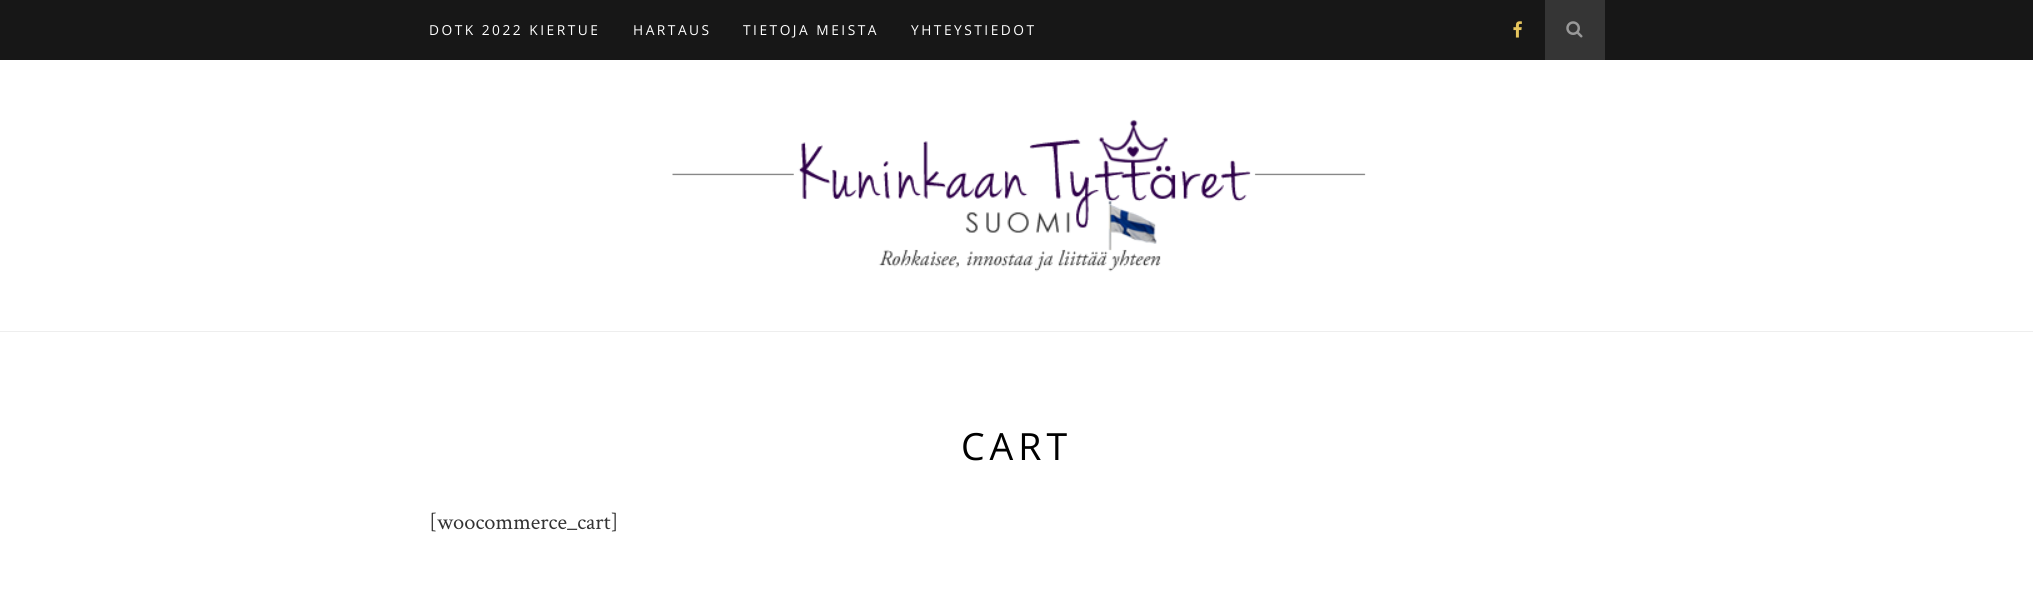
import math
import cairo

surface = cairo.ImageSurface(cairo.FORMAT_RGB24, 2033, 589)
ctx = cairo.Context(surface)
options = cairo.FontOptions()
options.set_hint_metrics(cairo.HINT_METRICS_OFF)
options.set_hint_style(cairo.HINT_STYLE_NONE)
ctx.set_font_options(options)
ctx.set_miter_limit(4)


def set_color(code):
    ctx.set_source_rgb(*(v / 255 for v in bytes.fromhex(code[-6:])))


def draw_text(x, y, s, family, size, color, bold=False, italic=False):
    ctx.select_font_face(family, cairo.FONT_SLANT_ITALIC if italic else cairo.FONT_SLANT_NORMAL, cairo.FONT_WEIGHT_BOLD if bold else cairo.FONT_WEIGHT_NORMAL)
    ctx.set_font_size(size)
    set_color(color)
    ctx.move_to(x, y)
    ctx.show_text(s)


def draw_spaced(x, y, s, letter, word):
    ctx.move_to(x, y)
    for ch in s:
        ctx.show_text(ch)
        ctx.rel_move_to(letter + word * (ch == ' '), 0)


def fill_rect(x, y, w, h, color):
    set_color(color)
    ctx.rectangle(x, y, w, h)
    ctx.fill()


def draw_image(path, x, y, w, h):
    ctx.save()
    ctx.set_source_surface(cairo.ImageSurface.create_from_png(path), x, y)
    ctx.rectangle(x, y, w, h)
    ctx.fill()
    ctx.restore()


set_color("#ffffff")
ctx.paint()
fill_rect(0, 0, 2033, 60, "#171717")
ctx.select_font_face("Open Sans")
ctx.set_font_size(13.75)
set_color("#ffffff")
draw_spaced(429, 35, "DOTK 2022 KIERTUE", 2.5, 0)
draw_spaced(633, 35, "HARTAUS", 2.5, 0)
draw_spaced(743, 35, "TIETOJA MEISTA", 2.5, 0)
draw_spaced(911, 35, "YHTEYSTIEDOT", 2.5, 0)
draw_image("assets/img1.png", 1513, 21, 9, 17)
fill_rect(1545, 0, 60, 60, "#353535")
draw_image("assets/img2.png", 1566, 21, 17, 17)
fill_rect(0, 331, 2033, 1, "#eeeeee")
draw_image("assets/img3.png", 672, 119, 694, 153)
ctx.set_font_size(37.5)
set_color("#000000")
draw_spaced(961, 460, "CART", 5, 0)
draw_text(429, 529, "[woocommerce_cart]", "Crimson Text", 22.5, "#333333")
surface.write_to_png("output.png")
